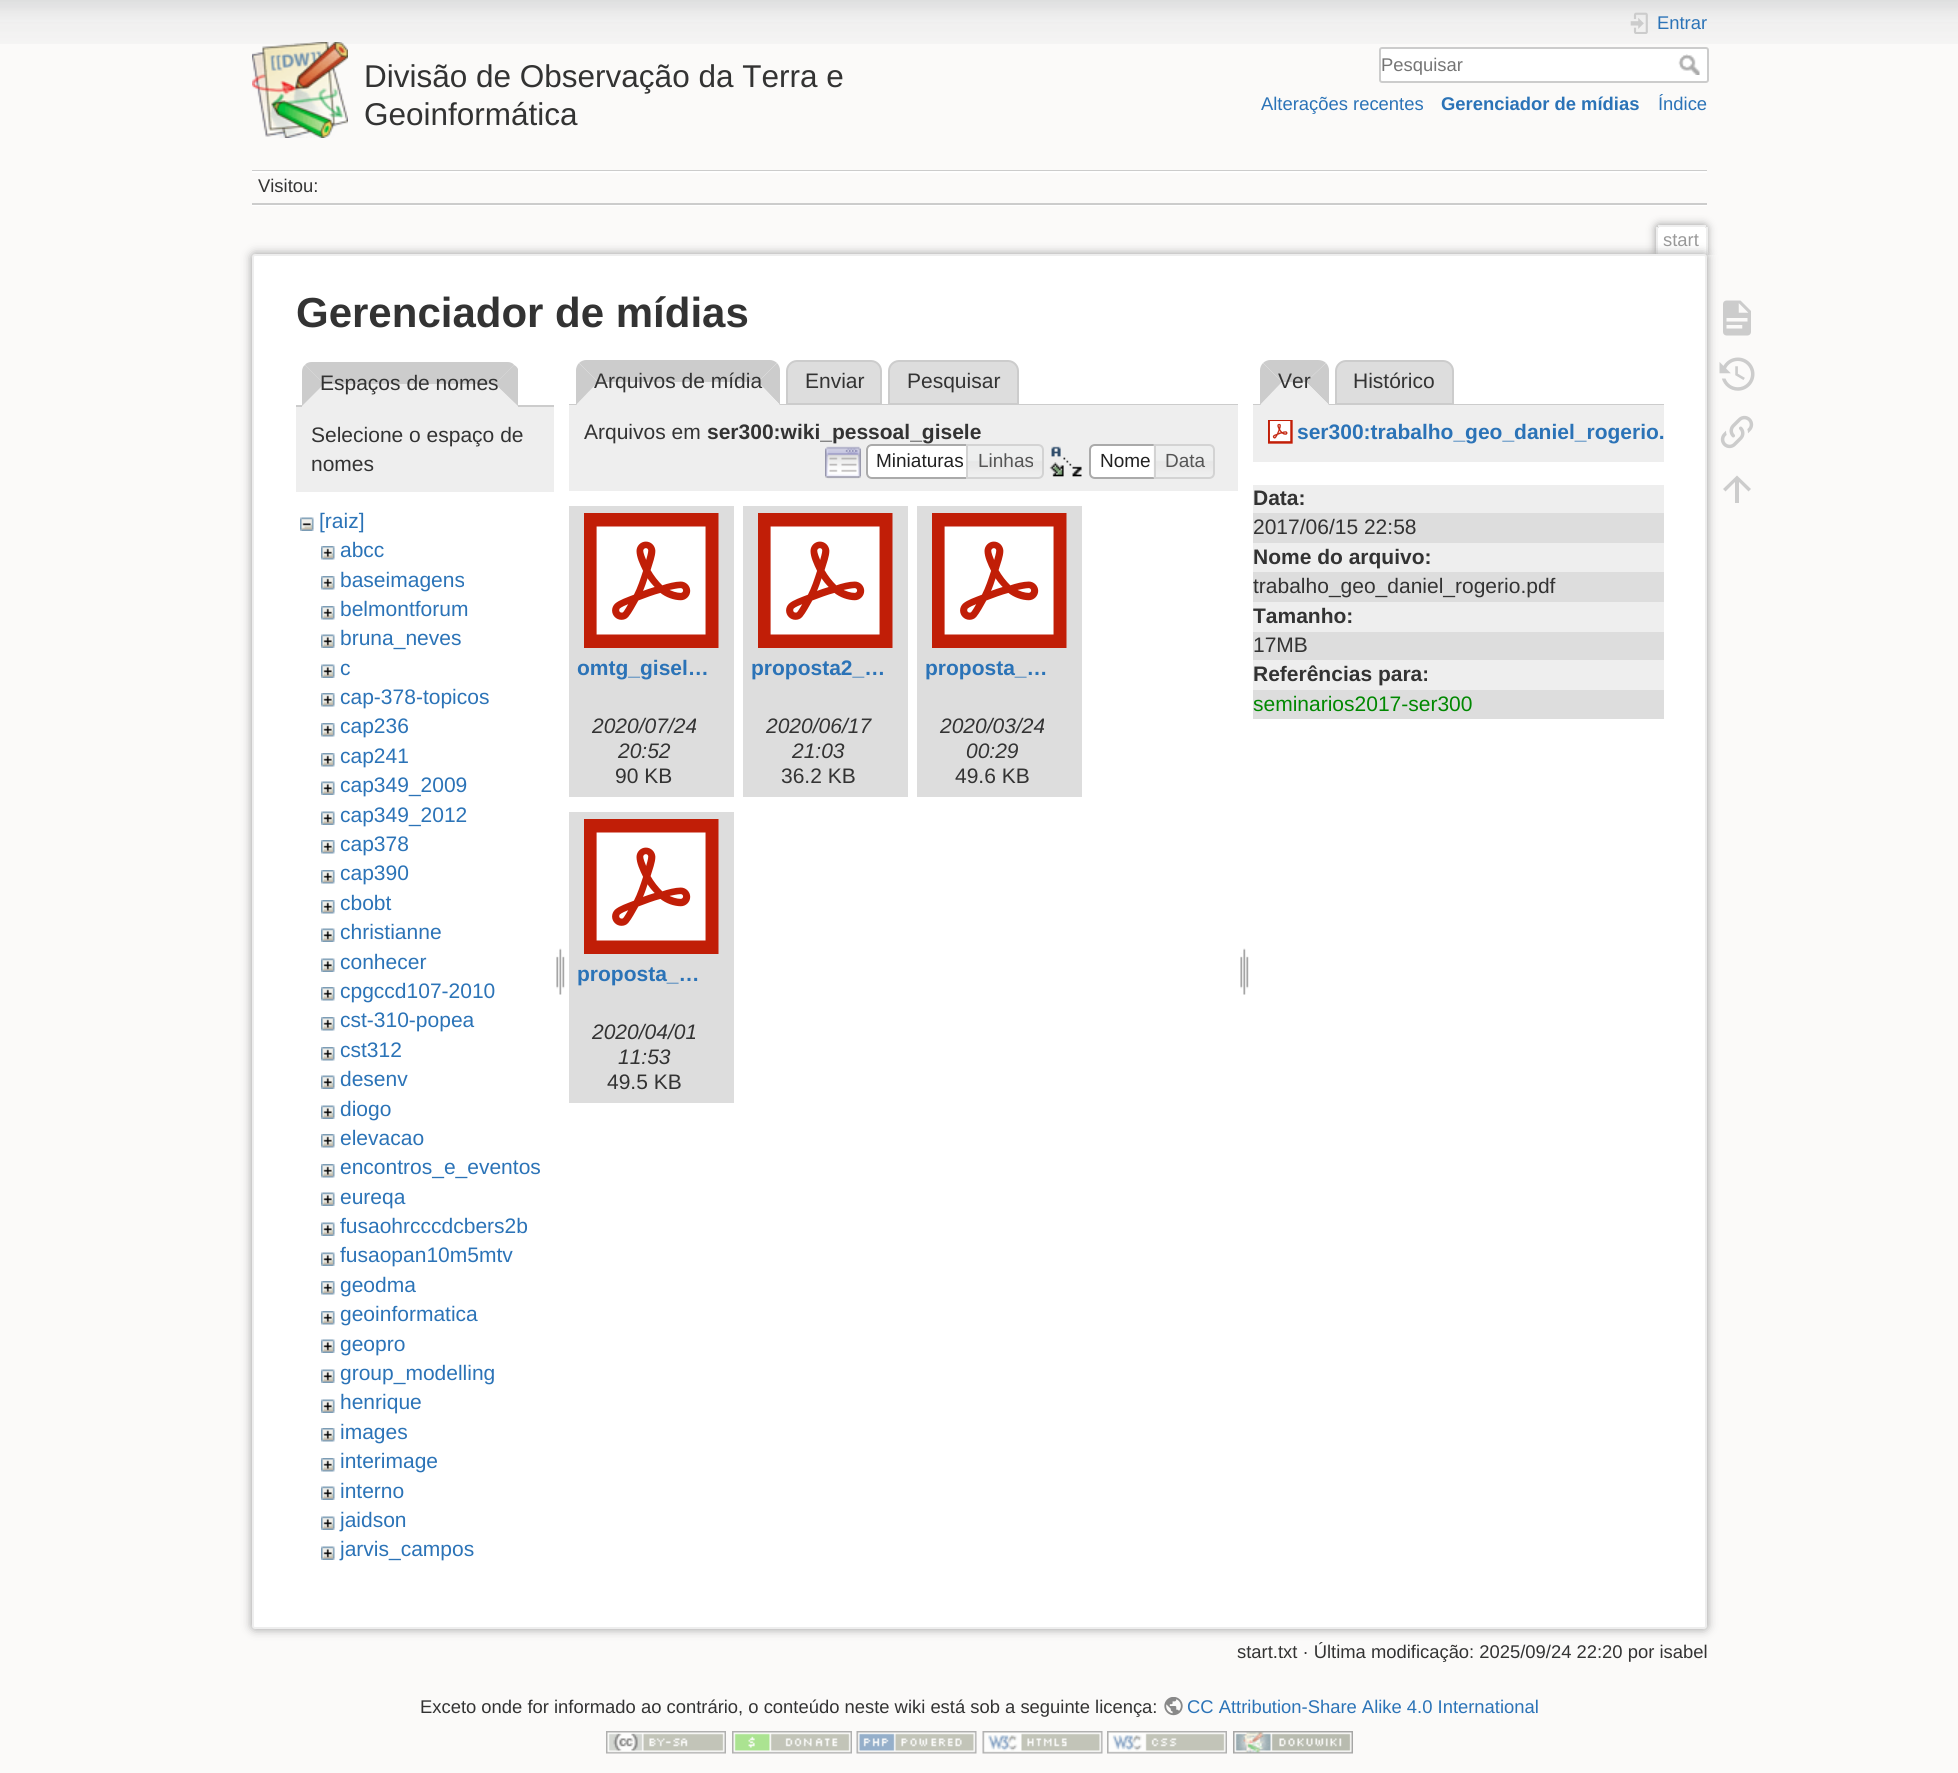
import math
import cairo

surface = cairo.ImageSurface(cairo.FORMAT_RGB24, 1958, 1773)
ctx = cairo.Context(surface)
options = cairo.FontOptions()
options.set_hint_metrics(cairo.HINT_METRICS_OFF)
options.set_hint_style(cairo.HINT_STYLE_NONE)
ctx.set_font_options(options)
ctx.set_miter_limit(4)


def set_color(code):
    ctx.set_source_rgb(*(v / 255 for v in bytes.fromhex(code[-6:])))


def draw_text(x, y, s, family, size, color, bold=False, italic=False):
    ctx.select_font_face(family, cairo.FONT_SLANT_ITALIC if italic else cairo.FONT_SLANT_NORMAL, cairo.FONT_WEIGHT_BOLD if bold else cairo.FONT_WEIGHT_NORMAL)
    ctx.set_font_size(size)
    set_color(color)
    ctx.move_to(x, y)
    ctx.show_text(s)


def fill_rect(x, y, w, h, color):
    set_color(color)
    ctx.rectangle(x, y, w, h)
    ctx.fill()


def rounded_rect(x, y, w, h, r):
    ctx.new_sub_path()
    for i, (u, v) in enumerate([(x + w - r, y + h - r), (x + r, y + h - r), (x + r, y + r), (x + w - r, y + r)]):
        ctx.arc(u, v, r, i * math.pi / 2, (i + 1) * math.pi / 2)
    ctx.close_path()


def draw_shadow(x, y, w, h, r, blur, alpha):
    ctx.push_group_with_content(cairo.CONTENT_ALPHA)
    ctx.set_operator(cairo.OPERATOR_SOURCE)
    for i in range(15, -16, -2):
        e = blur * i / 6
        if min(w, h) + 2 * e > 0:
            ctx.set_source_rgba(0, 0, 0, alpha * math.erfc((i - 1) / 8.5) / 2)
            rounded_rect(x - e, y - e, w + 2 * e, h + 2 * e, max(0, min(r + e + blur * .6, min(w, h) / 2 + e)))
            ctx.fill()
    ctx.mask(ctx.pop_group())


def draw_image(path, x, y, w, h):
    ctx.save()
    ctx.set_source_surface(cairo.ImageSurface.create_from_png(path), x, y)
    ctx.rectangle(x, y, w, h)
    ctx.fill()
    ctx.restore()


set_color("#fbfaf9")
ctx.paint()
draw_image("assets/img1.png", 0, 0, 1958, 44)
draw_image("assets/img2.png", 252, 42, 96, 96)
draw_text(364, 87, "Divisão de Observação da Terra e", "Liberation Sans", 31.5, "#333333")
draw_text(364, 125, "Geoinformática", "Liberation Sans", 31.5, "#333333")
draw_image("assets/img3.png", 1630, 12, 18, 22)
draw_text(1657, 29, "Entrar", "Liberation Sans", 18.4, "#2b73b7")
set_color("#ffffff")
rounded_rect(1380, 48, 328, 34, 2)
ctx.fill_preserve()
set_color("#cccccc")
ctx.stroke()
draw_text(1381, 71, "Pesquisar", "Liberation Sans", 18.4, "#757575")
draw_image("assets/img4.png", 1678, 54, 22, 21)
draw_text(1261, 110, "Alterações recentes", "Liberation Sans", 18.4, "#2b73b7")
draw_text(1441, 110, "Gerenciador de mídias", "Liberation Sans", 18.4, "#2b73b7", bold=True)
draw_text(1658, 110, "Índice", "Liberation Sans", 18.4, "#2b73b7")
fill_rect(252, 170, 1455, 1, "#cccccc")
fill_rect(252, 205, 1455, 1, "#ffffff")
fill_rect(252, 171, 1455, 2, "#ffffff")
fill_rect(252, 203, 1455, 2, "#cccccc")
draw_text(258, 192, "Visitou:", "Liberation Sans", 18.4, "#333333")
ctx.save()
ctx.rectangle(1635, 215, 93, 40)
ctx.clip()
set_color("#999999")
draw_shadow(1656, 225, 51, 30, 3, 4.5, 1)
ctx.restore()
set_color("#ffffff")
ctx.new_path()
ctx.move_to(1659.5, 227)
ctx.line_to(1704.5, 227)
ctx.curve_to(1705.5, 227, 1706, 227.5, 1706, 228.5)
ctx.line_to(1706, 255)
ctx.line_to(1658, 255)
ctx.line_to(1658, 228.5)
ctx.curve_to(1658, 227.5, 1658.5, 227, 1659.5, 227)
ctx.close_path()
ctx.fill()
fill_rect(1658, 225, 48, 2, "#eeeeee")
fill_rect(1706, 227, 2, 28, "#eeeeee")
fill_rect(1656, 227, 2, 28, "#eeeeee")
draw_text(1663, 246, "start", "Liberation Sans", 18.4, "#999999")
set_color("#999999")
draw_shadow(252, 254, 1455, 1375, 3, 5, 1)
set_color("#ffffff")
rounded_rect(253, 255, 1453, 1373, 2)
ctx.fill_preserve()
set_color("#eeeeee")
ctx.stroke()
draw_text(296, 327, "Gerenciador de mídias", "Liberation Sans", 42, "#333333", bold=True)
fill_rect(296, 405, 258, 2, "#cccccc")
set_color("#eeeeee")
ctx.new_path()
ctx.move_to(313, 362)
ctx.line_to(507, 362)
ctx.curve_to(513, 362, 518, 367, 518, 373)
ctx.line_to(518, 407)
ctx.line_to(302, 407)
ctx.line_to(302, 373)
ctx.curve_to(302, 367, 307, 362, 313, 362)
ctx.close_path()
ctx.fill()
set_color("#cccccc")
ctx.new_path()
ctx.move_to(312, 362)
ctx.curve_to(309, 362, 306, 363, 305, 365)
ctx.line_to(324, 384)
ctx.line_to(495, 384)
ctx.line_to(514, 365)
ctx.curve_to(513, 363, 510, 362, 507, 362)
ctx.close_path()
ctx.fill()
ctx.new_path()
ctx.move_to(518, 406)
ctx.line_to(495, 384)
ctx.line_to(514, 365)
ctx.curve_to(516, 366, 517, 367, 518, 369)
ctx.close_path()
ctx.fill()
set_color("#eeeeee")
ctx.new_path()
ctx.move_to(517, 406)
ctx.line_to(495, 384)
ctx.line_to(324, 384)
ctx.line_to(302, 406)
ctx.close_path()
ctx.fill()
set_color("#cccccc")
ctx.new_path()
ctx.move_to(305, 365)
ctx.curve_to(303, 366, 302, 369, 302, 372)
ctx.line_to(302, 406)
ctx.line_to(324, 384)
ctx.close_path()
ctx.fill()
draw_text(320, 390, "Espaços de nomes", "Liberation Sans", 21, "#333333")
fill_rect(296, 407, 258, 85, "#eeeeee")
draw_text(311, 442, "Selecione o espaço de", "Liberation Sans", 21, "#333333")
draw_text(311, 471, "nomes", "Liberation Sans", 21, "#333333")
draw_image("assets/img5.png", 300, 517, 14, 14)
draw_text(319, 528, "[raiz]", "Liberation Sans", 21, "#2b73b7")
draw_image("assets/img6.png", 321, 546, 14, 14)
draw_text(340, 557, "abcc", "Liberation Sans", 21, "#2b73b7")
draw_image("assets/img6.png", 321, 576, 14, 14)
draw_text(340, 587, "baseimagens", "Liberation Sans", 21, "#2b73b7")
draw_image("assets/img6.png", 321, 606, 14, 14)
draw_text(340, 616, "belmontforum", "Liberation Sans", 21, "#2b73b7")
draw_image("assets/img7.png", 321, 634, 14, 14)
draw_text(340, 645, "bruna_neves", "Liberation Sans", 21, "#2b73b7")
draw_image("assets/img7.png", 321, 664, 14, 14)
draw_text(340, 675, "c", "Liberation Sans", 21, "#2b73b7")
draw_image("assets/img6.png", 321, 693, 14, 14)
draw_text(340, 704, "cap-378-topicos", "Liberation Sans", 21, "#2b73b7")
draw_image("assets/img6.png", 321, 723, 14, 14)
draw_text(340, 733, "cap236", "Liberation Sans", 21, "#2b73b7")
draw_image("assets/img6.png", 321, 753, 14, 14)
draw_text(340, 763, "cap241", "Liberation Sans", 21, "#2b73b7")
draw_image("assets/img7.png", 321, 781, 14, 14)
draw_text(340, 792, "cap349_2009", "Liberation Sans", 21, "#2b73b7")
draw_image("assets/img7.png", 321, 811, 14, 14)
draw_text(340, 822, "cap349_2012", "Liberation Sans", 21, "#2b73b7")
draw_image("assets/img6.png", 321, 840, 14, 14)
draw_text(340, 851, "cap378", "Liberation Sans", 21, "#2b73b7")
draw_image("assets/img6.png", 321, 870, 14, 14)
draw_text(340, 880, "cap390", "Liberation Sans", 21, "#2b73b7")
draw_image("assets/img6.png", 321, 900, 14, 14)
draw_text(340, 910, "cbobt", "Liberation Sans", 21, "#2b73b7")
draw_image("assets/img7.png", 321, 928, 14, 14)
draw_text(340, 939, "christianne", "Liberation Sans", 21, "#2b73b7")
draw_image("assets/img7.png", 321, 958, 14, 14)
draw_text(340, 969, "conhecer", "Liberation Sans", 21, "#2b73b7")
draw_image("assets/img6.png", 321, 987, 14, 14)
draw_text(340, 998, "cpgccd107-2010", "Liberation Sans", 21, "#2b73b7")
draw_image("assets/img6.png", 321, 1017, 14, 14)
draw_text(340, 1027, "cst-310-popea", "Liberation Sans", 21, "#2b73b7")
draw_image("assets/img6.png", 321, 1047, 14, 14)
draw_text(340, 1057, "cst312", "Liberation Sans", 21, "#2b73b7")
draw_image("assets/img7.png", 321, 1075, 14, 14)
draw_text(340, 1086, "desenv", "Liberation Sans", 21, "#2b73b7")
draw_image("assets/img7.png", 321, 1105, 14, 14)
draw_text(340, 1116, "diogo", "Liberation Sans", 21, "#2b73b7")
draw_image("assets/img6.png", 321, 1134, 14, 14)
draw_text(340, 1145, "elevacao", "Liberation Sans", 21, "#2b73b7")
draw_image("assets/img6.png", 321, 1164, 14, 14)
draw_text(340, 1174, "encontros_e_eventos", "Liberation Sans", 21, "#2b73b7")
draw_image("assets/img7.png", 321, 1192, 14, 14)
draw_text(340, 1204, "eureqa", "Liberation Sans", 21, "#2b73b7")
draw_image("assets/img7.png", 321, 1222, 14, 14)
draw_text(340, 1233, "fusaohrcccdcbers2b", "Liberation Sans", 21, "#2b73b7")
draw_image("assets/img7.png", 321, 1252, 14, 14)
draw_text(340, 1262, "fusaopan10m5mtv", "Liberation Sans", 21, "#2b73b7")
draw_image("assets/img6.png", 321, 1281, 14, 14)
draw_text(340, 1292, "geodma", "Liberation Sans", 21, "#2b73b7")
draw_image("assets/img6.png", 321, 1311, 14, 14)
draw_text(340, 1321, "geoinformatica", "Liberation Sans", 21, "#2b73b7")
draw_image("assets/img7.png", 321, 1339, 14, 14)
draw_text(340, 1351, "geopro", "Liberation Sans", 21, "#2b73b7")
draw_image("assets/img7.png", 321, 1369, 14, 14)
draw_text(340, 1380, "group_modelling", "Liberation Sans", 21, "#2b73b7")
draw_image("assets/img7.png", 321, 1399, 14, 14)
draw_text(340, 1409, "henrique", "Liberation Sans", 21, "#2b73b7")
draw_image("assets/img6.png", 321, 1428, 14, 14)
draw_text(340, 1439, "images", "Liberation Sans", 21, "#2b73b7")
draw_image("assets/img6.png", 321, 1458, 14, 14)
draw_text(340, 1468, "interimage", "Liberation Sans", 21, "#2b73b7")
draw_image("assets/img7.png", 321, 1486, 14, 14)
draw_text(340, 1498, "interno", "Liberation Sans", 21, "#2b73b7")
draw_image("assets/img7.png", 321, 1516, 14, 14)
draw_text(340, 1527, "jaidson", "Liberation Sans", 21, "#2b73b7")
draw_image("assets/img7.png", 321, 1546, 14, 14)
draw_text(340, 1556, "jarvis_campos", "Liberation Sans", 21, "#2b73b7")
draw_image("assets/img8.png", 556, 948, 9, 47)
set_color("#cccccc")
ctx.new_path()
ctx.move_to(586, 360)
ctx.line_to(770, 360)
ctx.curve_to(772, 360, 775, 361, 777, 363)
ctx.line_to(758, 382)
ctx.line_to(598, 382)
ctx.line_to(579, 363)
ctx.curve_to(581, 361, 584, 360, 586, 360)
ctx.close_path()
ctx.fill()
set_color("#dddddd")
ctx.new_path()
ctx.move_to(797, 361)
ctx.line_to(871, 361)
ctx.curve_to(876.5, 361, 881, 365.5, 881, 371)
ctx.line_to(881, 404)
ctx.line_to(787, 404)
ctx.line_to(787, 371)
ctx.curve_to(787, 365.5, 791.5, 361, 797, 361)
ctx.close_path()
ctx.fill_preserve()
set_color("#cccccc")
ctx.stroke()
set_color("#dddddd")
ctx.new_path()
ctx.move_to(899, 361)
ctx.line_to(1008, 361)
ctx.curve_to(1013.5, 361, 1018, 365.5, 1018, 371)
ctx.line_to(1018, 404)
ctx.line_to(889, 404)
ctx.line_to(889, 371)
ctx.curve_to(889, 365.5, 893.5, 361, 899, 361)
ctx.close_path()
ctx.fill_preserve()
set_color("#cccccc")
ctx.stroke()
fill_rect(569, 404, 669, 1, "#cccccc")
ctx.new_path()
ctx.move_to(777, 363)
ctx.line_to(758, 382)
ctx.line_to(780, 405)
ctx.line_to(780, 370)
ctx.curve_to(780, 368, 779, 365, 777, 363)
ctx.close_path()
ctx.fill()
set_color("#eeeeee")
ctx.new_path()
ctx.move_to(780, 405)
ctx.line_to(758, 382)
ctx.line_to(598, 382)
ctx.line_to(576, 405)
ctx.close_path()
ctx.fill()
set_color("#cccccc")
ctx.new_path()
ctx.move_to(576, 405)
ctx.line_to(576, 370)
ctx.curve_to(576, 368, 577, 365, 579, 363)
ctx.line_to(598, 382)
ctx.close_path()
ctx.fill()
draw_text(594, 388, "Arquivos de mídia", "Liberation Sans", 21, "#333333")
draw_text(805, 388, "Enviar", "Liberation Sans", 21, "#333333")
draw_text(907, 388, "Pesquisar", "Liberation Sans", 21, "#333333")
fill_rect(569, 405, 669, 86, "#eeeeee")
draw_text(584, 439, "Arquivos em", "Liberation Sans", 21, "#333333")
draw_text(707, 439, "ser300:wiki_pessoal_gisele", "Liberation Sans", 21, "#333333", bold=True)
draw_image("assets/img9.png", 825, 446, 36, 33)
set_color("#ffffff")
ctx.new_path()
ctx.move_to(872, 444)
ctx.line_to(974, 444)
ctx.line_to(974, 479)
ctx.line_to(872, 479)
ctx.curve_to(868.5, 479, 866, 476.5, 866, 473)
ctx.line_to(866, 450)
ctx.curve_to(866, 446.5, 868.5, 444, 872, 444)
ctx.close_path()
ctx.fill()
draw_image("assets/img10.png", 865, 444, 5, 32)
ctx.new_path()
ctx.move_to(872, 445)
ctx.line_to(973, 445)
ctx.line_to(973, 478)
ctx.line_to(872, 478)
ctx.curve_to(869, 478, 867, 476, 867, 473)
ctx.line_to(867, 450)
ctx.curve_to(867, 447, 869, 445, 872, 445)
ctx.close_path()
set_color("#aaaaaa")
ctx.stroke()
draw_text(876, 467, "Miniaturas", "Liberation Sans", 19, "#212121")
draw_image("assets/img11.png", 968, 444, 76, 34)
ctx.new_path()
ctx.move_to(967, 445)
ctx.line_to(1038, 445)
ctx.curve_to(1041, 445, 1043, 447, 1043, 450)
ctx.line_to(1043, 473)
ctx.curve_to(1043, 476, 1041, 478, 1038, 478)
ctx.line_to(967, 478)
ctx.close_path()
set_color("#d3d3d3")
ctx.stroke()
draw_text(978, 467, "Linhas", "Liberation Sans", 19, "#555555")
draw_image("assets/img12.png", 1049, 446, 33, 31)
set_color("#ffffff")
ctx.new_path()
ctx.move_to(1095, 445)
ctx.line_to(1160, 445)
ctx.line_to(1160, 478)
ctx.line_to(1095, 478)
ctx.curve_to(1092, 478, 1090, 476, 1090, 473)
ctx.line_to(1090, 450)
ctx.curve_to(1090, 447, 1092, 445, 1095, 445)
ctx.close_path()
ctx.fill_preserve()
set_color("#aaaaaa")
ctx.stroke()
draw_text(1100, 467, "Nome", "Liberation Sans", 19, "#212121")
draw_image("assets/img13.png", 1153, 444, 62, 35)
ctx.new_path()
ctx.move_to(1155, 445)
ctx.line_to(1209, 445)
ctx.curve_to(1212, 445, 1214, 447, 1214, 450)
ctx.line_to(1214, 473)
ctx.curve_to(1214, 476, 1212, 478, 1209, 478)
ctx.line_to(1155, 478)
ctx.close_path()
set_color("#d3d3d3")
ctx.stroke()
draw_text(1165, 467, "Data", "Liberation Sans", 19, "#555555")
fill_rect(569, 506, 165, 291, "#dddddd")
draw_image("assets/img14.png", 584, 513, 135, 135)
draw_text(577, 675, "omtg_gisel…", "Liberation Sans", 21, "#2b73b7", bold=True)
draw_text(592, 733, "2020/07/24", "Liberation Sans", 21, "#333333", italic=True)
draw_text(618, 758, "20:52", "Liberation Sans", 21, "#333333", italic=True)
draw_text(615, 783, "90 KB", "Liberation Sans", 21, "#333333")
fill_rect(743, 506, 165, 291, "#dddddd")
draw_image("assets/img14.png", 758, 513, 135, 135)
draw_text(751, 675, "proposta2_…", "Liberation Sans", 21, "#2b73b7", bold=True)
draw_text(766, 733, "2020/06/17", "Liberation Sans", 21, "#333333", italic=True)
draw_text(792, 758, "21:03", "Liberation Sans", 21, "#333333", italic=True)
draw_text(781, 783, "36.2 KB", "Liberation Sans", 21, "#333333")
fill_rect(917, 506, 165, 291, "#dddddd")
draw_image("assets/img14.png", 932, 513, 135, 135)
draw_text(925, 675, "proposta_…", "Liberation Sans", 21, "#2b73b7", bold=True)
draw_text(940, 733, "2020/03/24", "Liberation Sans", 21, "#333333", italic=True)
draw_text(966, 758, "00:29", "Liberation Sans", 21, "#333333", italic=True)
draw_text(955, 783, "49.6 KB", "Liberation Sans", 21, "#333333")
fill_rect(569, 812, 165, 291, "#dddddd")
draw_image("assets/img14.png", 584, 819, 135, 135)
draw_text(577, 981, "proposta_…", "Liberation Sans", 21, "#2b73b7", bold=True)
draw_text(592, 1039, "2020/04/01", "Liberation Sans", 21, "#333333", italic=True)
draw_text(618, 1064, "11:53", "Liberation Sans", 21, "#333333", italic=True)
draw_text(607, 1089, "49.5 KB", "Liberation Sans", 21, "#333333")
draw_image("assets/img15.png", 1240, 948, 9, 47)
set_color("#cccccc")
ctx.new_path()
ctx.move_to(1270, 360)
ctx.line_to(1318, 360)
ctx.curve_to(1321, 360, 1324, 361, 1326, 363)
ctx.line_to(1306, 382)
ctx.line_to(1282, 382)
ctx.line_to(1263, 363)
ctx.curve_to(1265, 361, 1268, 360, 1270, 360)
ctx.close_path()
ctx.fill()
set_color("#dddddd")
ctx.new_path()
ctx.move_to(1346, 361)
ctx.line_to(1443, 361)
ctx.curve_to(1448.5, 361, 1453, 365.5, 1453, 371)
ctx.line_to(1453, 404)
ctx.line_to(1336, 404)
ctx.line_to(1336, 371)
ctx.curve_to(1336, 365.5, 1340.5, 361, 1346, 361)
ctx.close_path()
ctx.fill_preserve()
set_color("#cccccc")
ctx.stroke()
fill_rect(1253, 404, 411, 1, "#cccccc")
ctx.new_path()
ctx.move_to(1326, 363)
ctx.line_to(1306, 382)
ctx.line_to(1329, 405)
ctx.line_to(1329, 370)
ctx.curve_to(1329, 368, 1328, 365, 1326, 363)
ctx.close_path()
ctx.fill()
set_color("#eeeeee")
ctx.new_path()
ctx.move_to(1329, 405)
ctx.line_to(1306, 382)
ctx.line_to(1282, 382)
ctx.line_to(1260, 405)
ctx.close_path()
ctx.fill()
set_color("#cccccc")
ctx.new_path()
ctx.move_to(1260, 405)
ctx.line_to(1260, 370)
ctx.curve_to(1260, 368, 1261, 365, 1263, 363)
ctx.line_to(1282, 382)
ctx.close_path()
ctx.fill()
draw_text(1278, 388, "Ver", "Liberation Sans", 21, "#333333")
draw_text(1353, 388, "Histórico", "Liberation Sans", 21, "#333333")
fill_rect(1253, 405, 411, 57, "#eeeeee")
draw_image("assets/img16.png", 1268, 420, 25, 24)
draw_text(1297, 439, "ser300:trabalho_geo_daniel_rogerio.", "Liberation Sans", 21, "#2b73b7", bold=True)
fill_rect(1253, 485, 411, 28, "#eeeeee")
draw_text(1253, 505, "Data:", "Liberation Sans", 21, "#333333", bold=True)
fill_rect(1253, 513, 411, 30, "#dddddd")
draw_text(1253, 534, "2017/06/15 22:58", "Liberation Sans", 21, "#333333")
fill_rect(1253, 543, 411, 29, "#eeeeee")
draw_text(1253, 564, "Nome do arquivo:", "Liberation Sans", 21, "#333333", bold=True)
fill_rect(1253, 572, 411, 30, "#dddddd")
draw_text(1253, 593, "trabalho_geo_daniel_rogerio.pdf", "Liberation Sans", 21, "#333333")
fill_rect(1253, 602, 411, 30, "#eeeeee")
draw_text(1253, 623, "Tamanho:", "Liberation Sans", 21, "#333333", bold=True)
fill_rect(1253, 632, 411, 28, "#dddddd")
draw_text(1253, 652, "17MB", "Liberation Sans", 21, "#333333")
fill_rect(1253, 660, 411, 30, "#eeeeee")
draw_text(1253, 681, "Referências para:", "Liberation Sans", 21, "#333333", bold=True)
fill_rect(1253, 690, 411, 29, "#dddddd")
draw_text(1253, 711, "seminarios2017-ser300", "Liberation Sans", 21, "#008800")
draw_text(1237, 1658, "start.txt · Última modificação: 2025/09/24 22:20 por isabel", "Liberation Sans", 18.4, "#333333")
draw_image("assets/img17.png", 1723, 300, 28, 36)
draw_image("assets/img18.png", 1719, 357, 36, 34)
draw_image("assets/img19.png", 1720, 415, 34, 34)
set_color("#cccccc")
ctx.new_path()
ctx.move_to(1739, 503)
ctx.line_to(1735, 503)
ctx.line_to(1735, 482)
ctx.line_to(1725.5, 491.5)
ctx.line_to(1723, 489)
ctx.line_to(1737, 475.5)
ctx.line_to(1751, 489)
ctx.line_to(1748.5, 491.5)
ctx.line_to(1739, 482)
ctx.close_path()
ctx.fill()
draw_text(420, 1713, "Exceto onde for informado ao contrário, o conteúdo neste wiki está sob a seguinte licença:", "Liberation Sans", 18.4, "#333333")
draw_image("assets/img20.png", 1164, 1697, 19, 19)
draw_text(1187, 1713, "CC Attribution-Share Alike 4.0 International", "Liberation Sans", 18.4, "#2b73b7")
draw_image("assets/img21.png", 606, 1731, 120, 23)
draw_image("assets/img22.png", 732, 1731, 120, 23)
draw_image("assets/img23.png", 856, 1731, 121, 23)
draw_image("assets/img24.png", 982, 1731, 121, 23)
draw_image("assets/img25.png", 1107, 1731, 120, 23)
draw_image("assets/img26.png", 1233, 1731, 120, 23)
surface.write_to_png("output.png")
